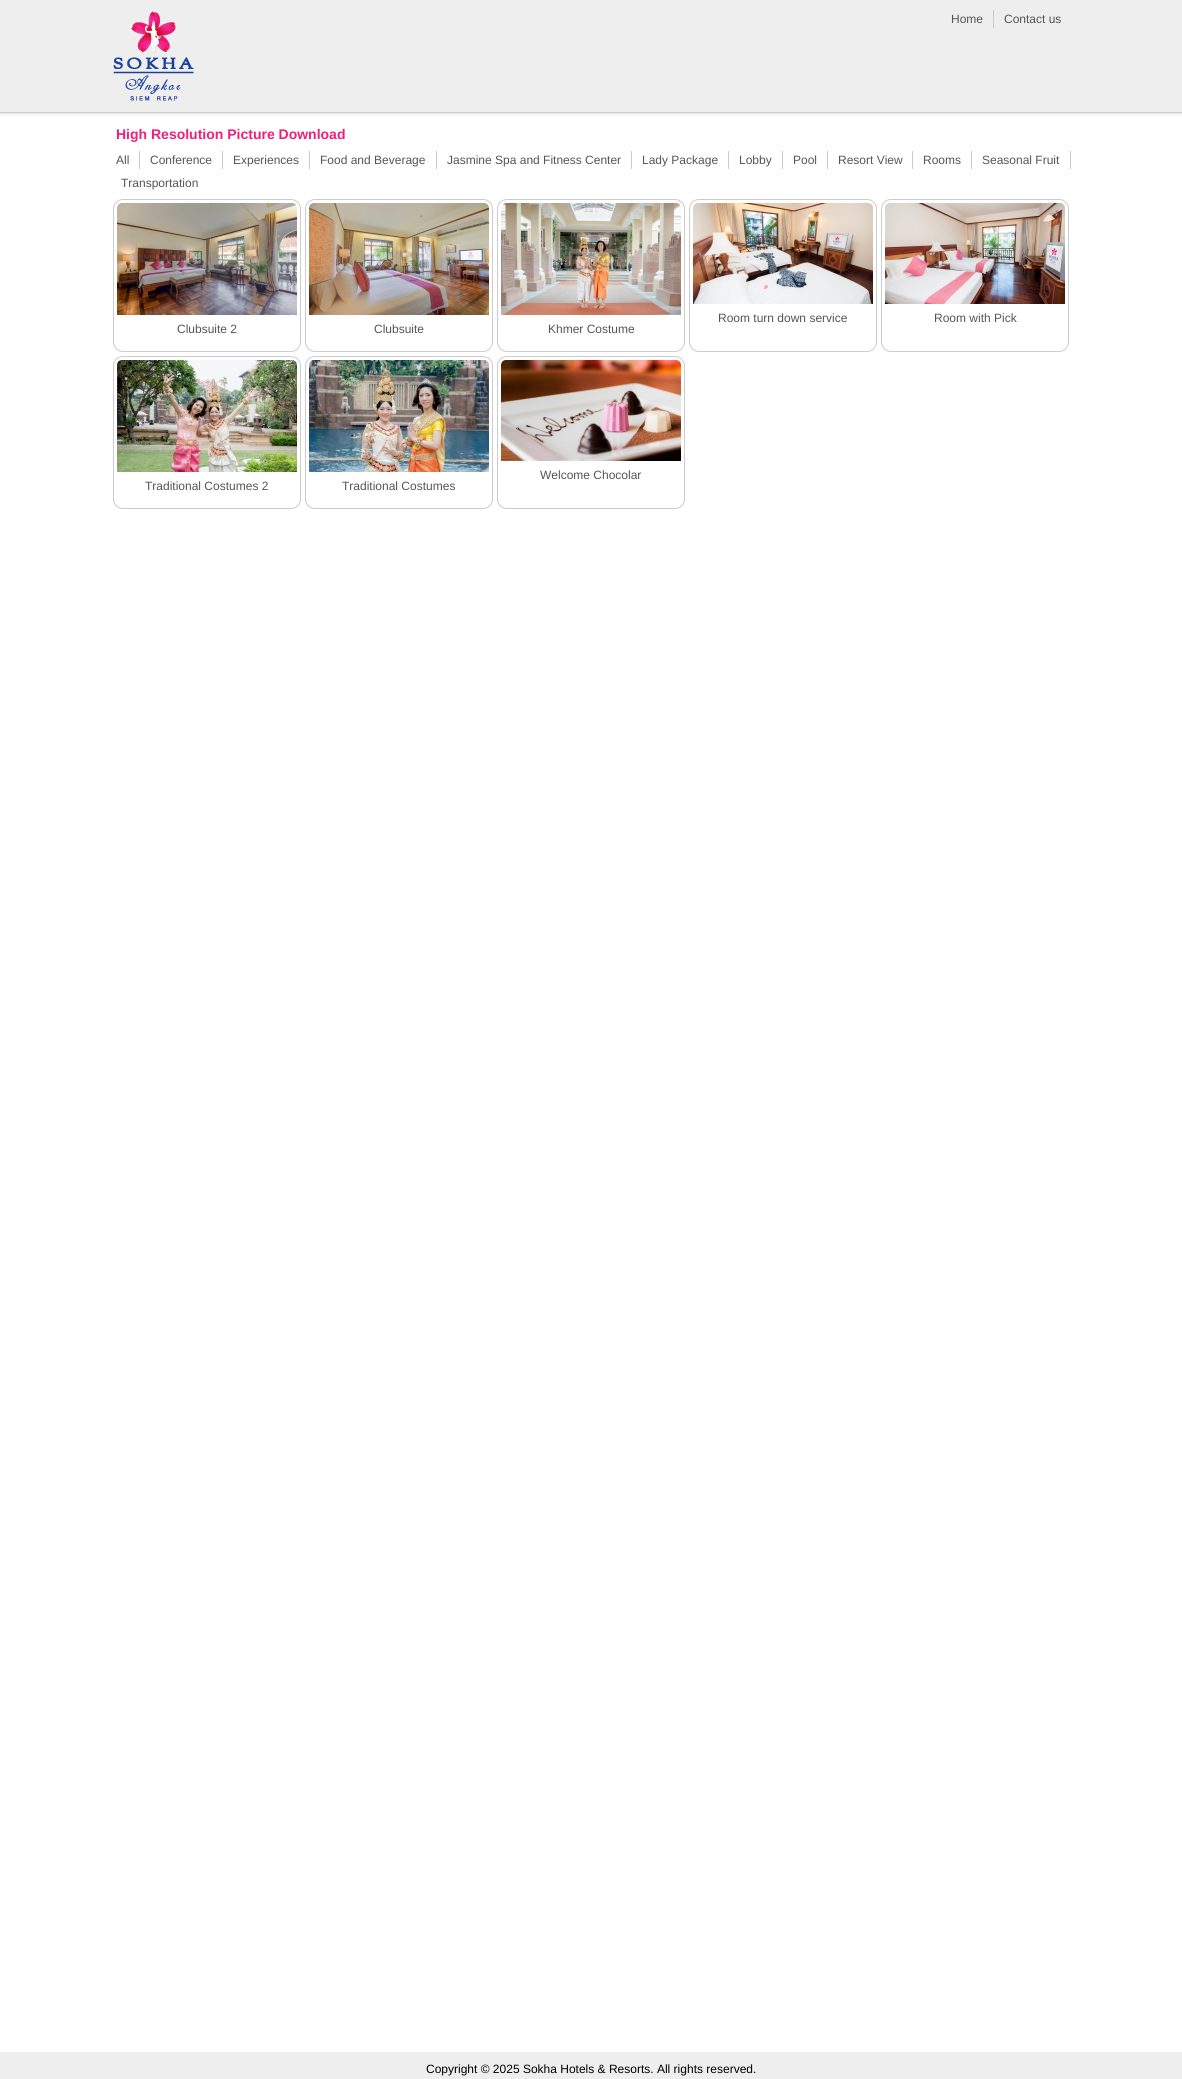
import math
import cairo

surface = cairo.ImageSurface(cairo.FORMAT_RGB24, 1182, 2079)
ctx = cairo.Context(surface)
options = cairo.FontOptions()
options.set_hint_metrics(cairo.HINT_METRICS_OFF)
options.set_hint_style(cairo.HINT_STYLE_NONE)
ctx.set_font_options(options)
ctx.set_miter_limit(4)


def set_color(code):
    ctx.set_source_rgb(*(v / 255 for v in bytes.fromhex(code[-6:])))


def draw_text(x, y, s, family, size, color, bold=False, italic=False):
    ctx.select_font_face(family, cairo.FONT_SLANT_ITALIC if italic else cairo.FONT_SLANT_NORMAL, cairo.FONT_WEIGHT_BOLD if bold else cairo.FONT_WEIGHT_NORMAL)
    ctx.set_font_size(size)
    set_color(color)
    ctx.move_to(x, y)
    ctx.show_text(s)


def fill_rect(x, y, w, h, color):
    set_color(color)
    ctx.rectangle(x, y, w, h)
    ctx.fill()


def rounded_rect(x, y, w, h, r):
    ctx.new_sub_path()
    for i, (u, v) in enumerate([(x + w - r, y + h - r), (x + r, y + h - r), (x + r, y + r), (x + w - r, y + r)]):
        ctx.arc(u, v, r, i * math.pi / 2, (i + 1) * math.pi / 2)
    ctx.close_path()


def draw_shadow(x, y, w, h, r, blur, alpha):
    ctx.push_group_with_content(cairo.CONTENT_ALPHA)
    ctx.set_operator(cairo.OPERATOR_SOURCE)
    for i in range(15, -16, -2):
        e = blur * i / 6
        if min(w, h) + 2 * e > 0:
            ctx.set_source_rgba(0, 0, 0, alpha * math.erfc((i - 1) / 8.5) / 2)
            rounded_rect(x - e, y - e, w + 2 * e, h + 2 * e, max(0, min(r + e + blur * .6, min(w, h) / 2 + e)))
            ctx.fill()
    ctx.mask(ctx.pop_group())


def draw_image(path, x, y, w, h):
    ctx.save()
    ctx.set_source_surface(cairo.ImageSurface.create_from_png(path), x, y)
    ctx.rectangle(x, y, w, h)
    ctx.fill()
    ctx.restore()


set_color("#ffffff")
ctx.paint()
set_color("#cccccc")
draw_shadow(0, 0, 1182, 113, 0, 2, 1)
fill_rect(0, 0, 1182, 112, "#eeeeee")
fill_rect(0, 112, 1182, 1, "#cccccc")
draw_image("assets/img1.png", 113, 11, 81, 90)
draw_text(951, 23, "Home", "Liberation Sans", 12, "#555555")
fill_rect(993, 10, 1, 18, "#cccccc")
draw_text(1004, 23, "Contact us", "Liberation Sans", 12, "#555555")
draw_text(116, 139, "High Resolution Picture Download", "Liberation Sans", 14, "#f01e79", bold=True)
fill_rect(139, 151, 1, 18, "#cccccc")
draw_text(116, 164, "All", "Liberation Sans", 12, "#555555")
fill_rect(222, 151, 1, 18, "#cccccc")
draw_text(150, 164, "Conference", "Liberation Sans", 12, "#555555")
fill_rect(309, 151, 1, 18, "#cccccc")
draw_text(233, 164, "Experiences", "Liberation Sans", 12, "#555555")
fill_rect(436, 151, 1, 18, "#cccccc")
draw_text(320, 164, "Food and Beverage", "Liberation Sans", 12, "#555555")
fill_rect(631, 151, 1, 18, "#cccccc")
draw_text(447, 164, "Jasmine Spa and Fitness Center", "Liberation Sans", 12, "#555555")
fill_rect(728, 151, 1, 18, "#cccccc")
draw_text(642, 164, "Lady Package", "Liberation Sans", 12, "#555555")
fill_rect(782, 151, 1, 18, "#cccccc")
draw_text(739, 164, "Lobby", "Liberation Sans", 12, "#555555")
fill_rect(827, 151, 1, 18, "#cccccc")
draw_text(793, 164, "Pool", "Liberation Sans", 12, "#555555")
fill_rect(912, 151, 1, 18, "#cccccc")
draw_text(838, 164, "Resort View", "Liberation Sans", 12, "#555555")
fill_rect(971, 151, 1, 18, "#cccccc")
draw_text(923, 164, "Rooms", "Liberation Sans", 12, "#555555")
fill_rect(1070, 151, 1, 18, "#cccccc")
draw_text(982, 164, "Seasonal Fruit", "Liberation Sans", 12, "#555555")
draw_text(121, 187, "Transportation", "Liberation Sans", 12, "#555555")
rounded_rect(689.5, 199.5, 187, 152, 9.5)
set_color("#cccccc")
ctx.set_line_width(1)
ctx.stroke()
draw_image("assets/img2.png", 693, 203, 180, 101)
draw_text(718, 322, "Room turn down service", "Liberation Sans", 12, "#555555")
rounded_rect(881.5, 199.5, 187, 152, 9.5)
set_color("#cccccc")
ctx.stroke()
draw_image("assets/img3.png", 885, 203, 180, 101)
draw_text(934, 322, "Room with Pick", "Liberation Sans", 12, "#555555")
rounded_rect(113.5, 199.5, 187, 152, 9.5)
set_color("#cccccc")
ctx.stroke()
draw_image("assets/img4.png", 117, 203, 180, 112)
draw_text(177, 333, "Clubsuite 2", "Liberation Sans", 12, "#555555")
rounded_rect(305.5, 199.5, 187, 152, 9.5)
set_color("#cccccc")
ctx.stroke()
draw_image("assets/img5.png", 309, 203, 180, 112)
draw_text(374, 333, "Clubsuite", "Liberation Sans", 12, "#555555")
rounded_rect(497.5, 199.5, 187, 152, 9.5)
set_color("#cccccc")
ctx.stroke()
draw_image("assets/img6.png", 501, 203, 180, 112)
draw_text(548, 333, "Khmer Costume", "Liberation Sans", 12, "#555555")
rounded_rect(497.5, 356.5, 187, 152, 9.5)
set_color("#cccccc")
ctx.stroke()
draw_image("assets/img7.png", 501, 360, 180, 101)
draw_text(540, 479, "Welcome Chocolar", "Liberation Sans", 12, "#555555")
rounded_rect(113.5, 356.5, 187, 152, 9.5)
set_color("#cccccc")
ctx.stroke()
draw_image("assets/img8.png", 117, 360, 180, 112)
draw_text(145, 490, "Traditional Costumes 2", "Liberation Sans", 12, "#555555")
rounded_rect(305.5, 356.5, 187, 152, 9.5)
set_color("#cccccc")
ctx.stroke()
draw_image("assets/img9.png", 309, 360, 180, 112)
draw_text(342, 490, "Traditional Costumes", "Liberation Sans", 12, "#555555")
fill_rect(0, 2052, 1182, 27, "#eeeeee")
draw_text(426, 2073, "Copyright © 2025 Sokha Hotels & Resorts. All rights reserved.", "Liberation Sans", 12, "#000000")
surface.write_to_png("output.png")
